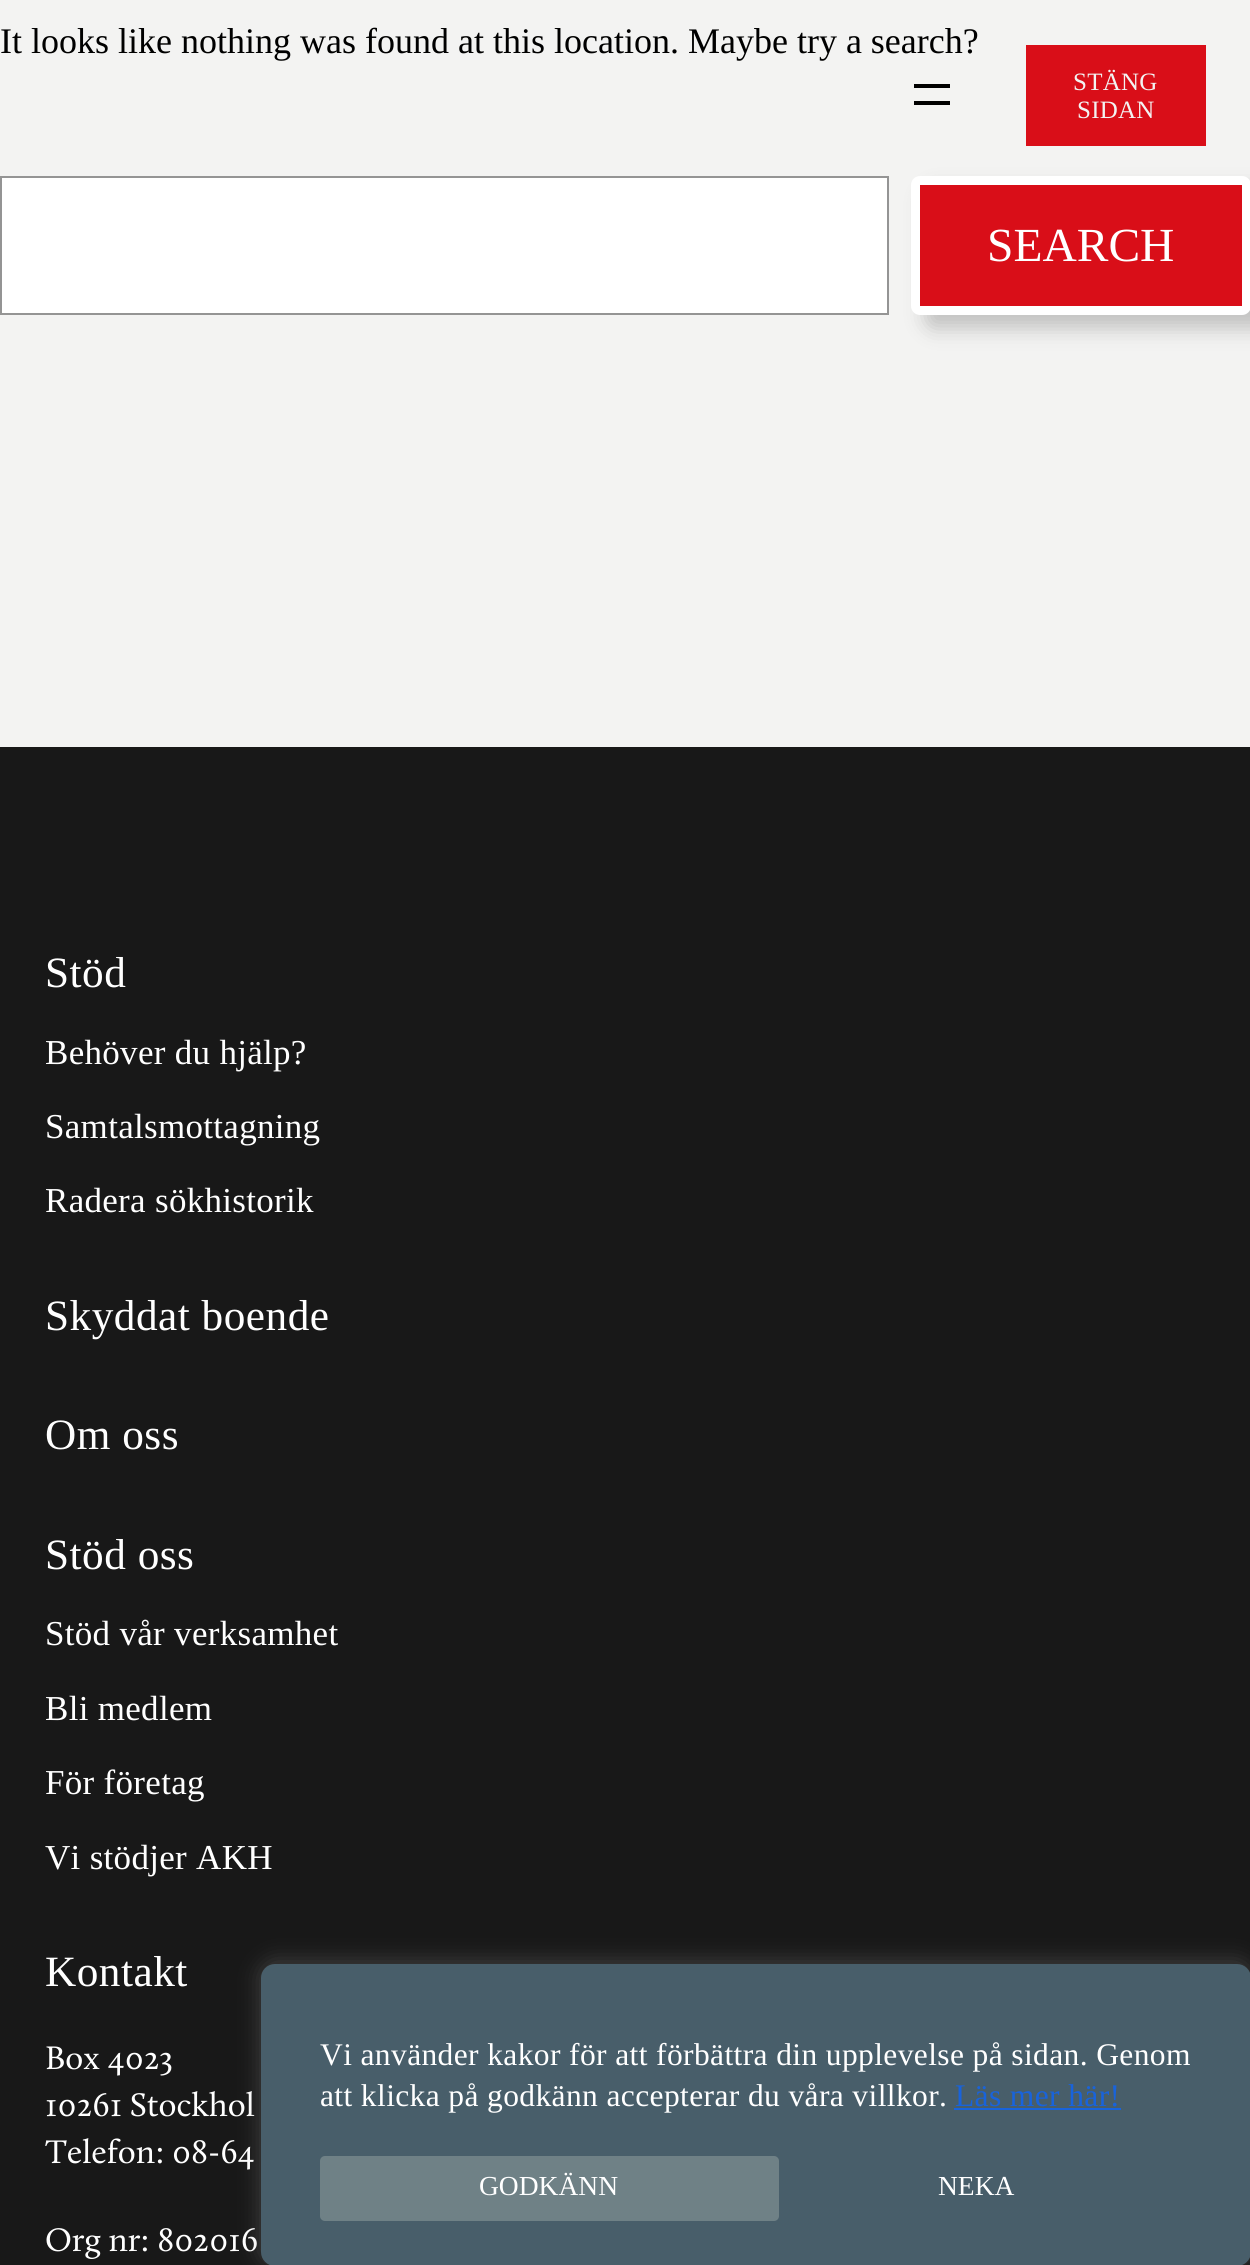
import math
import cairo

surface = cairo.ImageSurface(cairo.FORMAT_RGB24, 1250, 2265)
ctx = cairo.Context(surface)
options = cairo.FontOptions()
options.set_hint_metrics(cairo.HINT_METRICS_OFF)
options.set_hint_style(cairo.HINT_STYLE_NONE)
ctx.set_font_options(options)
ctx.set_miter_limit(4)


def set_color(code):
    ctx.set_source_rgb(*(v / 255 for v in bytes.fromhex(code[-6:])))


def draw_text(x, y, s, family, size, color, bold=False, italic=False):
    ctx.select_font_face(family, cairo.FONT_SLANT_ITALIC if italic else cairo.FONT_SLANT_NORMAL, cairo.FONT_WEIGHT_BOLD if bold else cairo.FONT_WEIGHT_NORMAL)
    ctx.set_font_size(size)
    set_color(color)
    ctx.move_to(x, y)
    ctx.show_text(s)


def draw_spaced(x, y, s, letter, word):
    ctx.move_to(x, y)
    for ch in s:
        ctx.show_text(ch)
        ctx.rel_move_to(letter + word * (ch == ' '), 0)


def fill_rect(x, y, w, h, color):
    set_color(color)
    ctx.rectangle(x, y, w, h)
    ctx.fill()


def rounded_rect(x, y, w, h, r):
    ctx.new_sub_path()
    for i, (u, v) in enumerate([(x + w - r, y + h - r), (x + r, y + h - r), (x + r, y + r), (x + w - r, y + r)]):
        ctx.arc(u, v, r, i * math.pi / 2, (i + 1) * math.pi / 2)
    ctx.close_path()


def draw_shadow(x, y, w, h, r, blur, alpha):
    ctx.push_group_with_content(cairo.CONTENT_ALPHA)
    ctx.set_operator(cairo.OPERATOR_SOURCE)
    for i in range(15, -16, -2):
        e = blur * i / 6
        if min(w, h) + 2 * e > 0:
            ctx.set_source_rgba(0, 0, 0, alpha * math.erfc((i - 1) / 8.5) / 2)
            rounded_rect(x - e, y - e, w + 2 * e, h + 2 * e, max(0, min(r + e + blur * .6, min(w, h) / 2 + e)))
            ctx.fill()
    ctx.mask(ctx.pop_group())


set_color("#f3f3f2")
ctx.paint()
draw_text(0, 53, "It looks like nothing was found at this location. Maybe try a search?", "Liberation Serif", 36, "#000000")
set_color("#ffffff")
ctx.rectangle(1, 177, 887, 137)
ctx.fill_preserve()
set_color("#949494")
ctx.stroke()
set_color("#000000")
draw_shadow(925, 189, 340, 140, 9, 10, 0.2)
set_color("#d90e18")
rounded_rect(915.5, 180.5, 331, 130, 4.5)
ctx.fill_preserve()
set_color("#ffffff")
ctx.set_line_width(9)
ctx.stroke()
draw_text(987, 261, "SEARCH", "Liberation Serif", 47.5, "#ffffff")
fill_rect(914, 84, 36, 4, "#000000")
fill_rect(914, 101, 36, 4, "#000000")
fill_rect(1026, 45, 180, 101, "#d90e18")
ctx.set_font_size(25)
set_color("#f3f3f2")
draw_spaced(1073, 90, "STÄNG", 0.25, 0)
draw_spaced(1077, 118, "SIDAN", 0.25, 0)
fill_rect(0, 747, 1250, 1518, "#181818")
ctx.set_font_size(43.25)
set_color("#ffffff")
draw_spaced(45, 987, "Stöd", 0.5, 0)
ctx.set_font_size(35)
draw_spaced(45, 1064, "Behöver du hjälp?", 0.3, 0)
draw_spaced(45, 1138, "Samtalsmottagning", 0.3, 0)
draw_spaced(45, 1212, "Radera sökhistorik", 0.3, 0)
ctx.set_font_size(43.25)
draw_spaced(45, 1330, "Skyddat boende", 0.5, 0)
draw_spaced(45, 1449, "Om oss", 0.5, 0)
draw_spaced(45, 1569, "Stöd oss", 0.5, 0)
ctx.set_font_size(35)
draw_spaced(45, 1645, "Stöd vår verksamhet", 0.3, 0)
draw_spaced(45, 1720, "Bli medlem", 0.3, 0)
draw_spaced(45, 1794, "För företag", 0.3, 0)
draw_spaced(45, 1869, "Vi stödjer AKH", 0.3, 0)
ctx.set_font_size(43.25)
draw_spaced(45, 1986, "Kontakt", 0.5, 0)
draw_text(45, 2069, "Box 4023", "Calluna", 33.75, "#ffffff")
draw_text(45, 2116, "10261 Stockhol", "Calluna", 33.75, "#ffffff")
draw_text(45, 2163, "Telefon: 08-64", "Calluna", 33.75, "#ffffff")
draw_text(45, 2251, "Org nr: 802016", "Calluna", 33.75, "#ffffff")
set_color("#acabab")
draw_shadow(261, 1962, 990, 302, 14, 11, 0.3)
set_color("#485e6a")
rounded_rect(261, 1964, 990, 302, 14)
ctx.fill()
ctx.select_font_face("Liberation Serif")
ctx.set_font_size(31.5)
set_color("#ffffff")
draw_spaced(320, 2065, "Vi använder kakor för att förbättra din upplevelse på sidan. Genom", 0.38, 0)
draw_spaced(320, 2106, "att klicka på godkänn accepterar du våra villkor.", 0.38, 0)
set_color("#1863dc")
draw_spaced(955, 2106, "Läs mer här!", 0.38, 0)
fill_rect(954, 2108, 167, 2, "#1863dc")
set_color("#6f8186")
rounded_rect(320, 2156, 459, 65, 5)
ctx.fill()
draw_text(479, 2195, "GODKÄNN", "Liberation Serif", 27.5, "#ffffff")
draw_text(938, 2195, "NEKA", "Liberation Serif", 27.5, "#ffffff")
surface.write_to_png("output.png")
